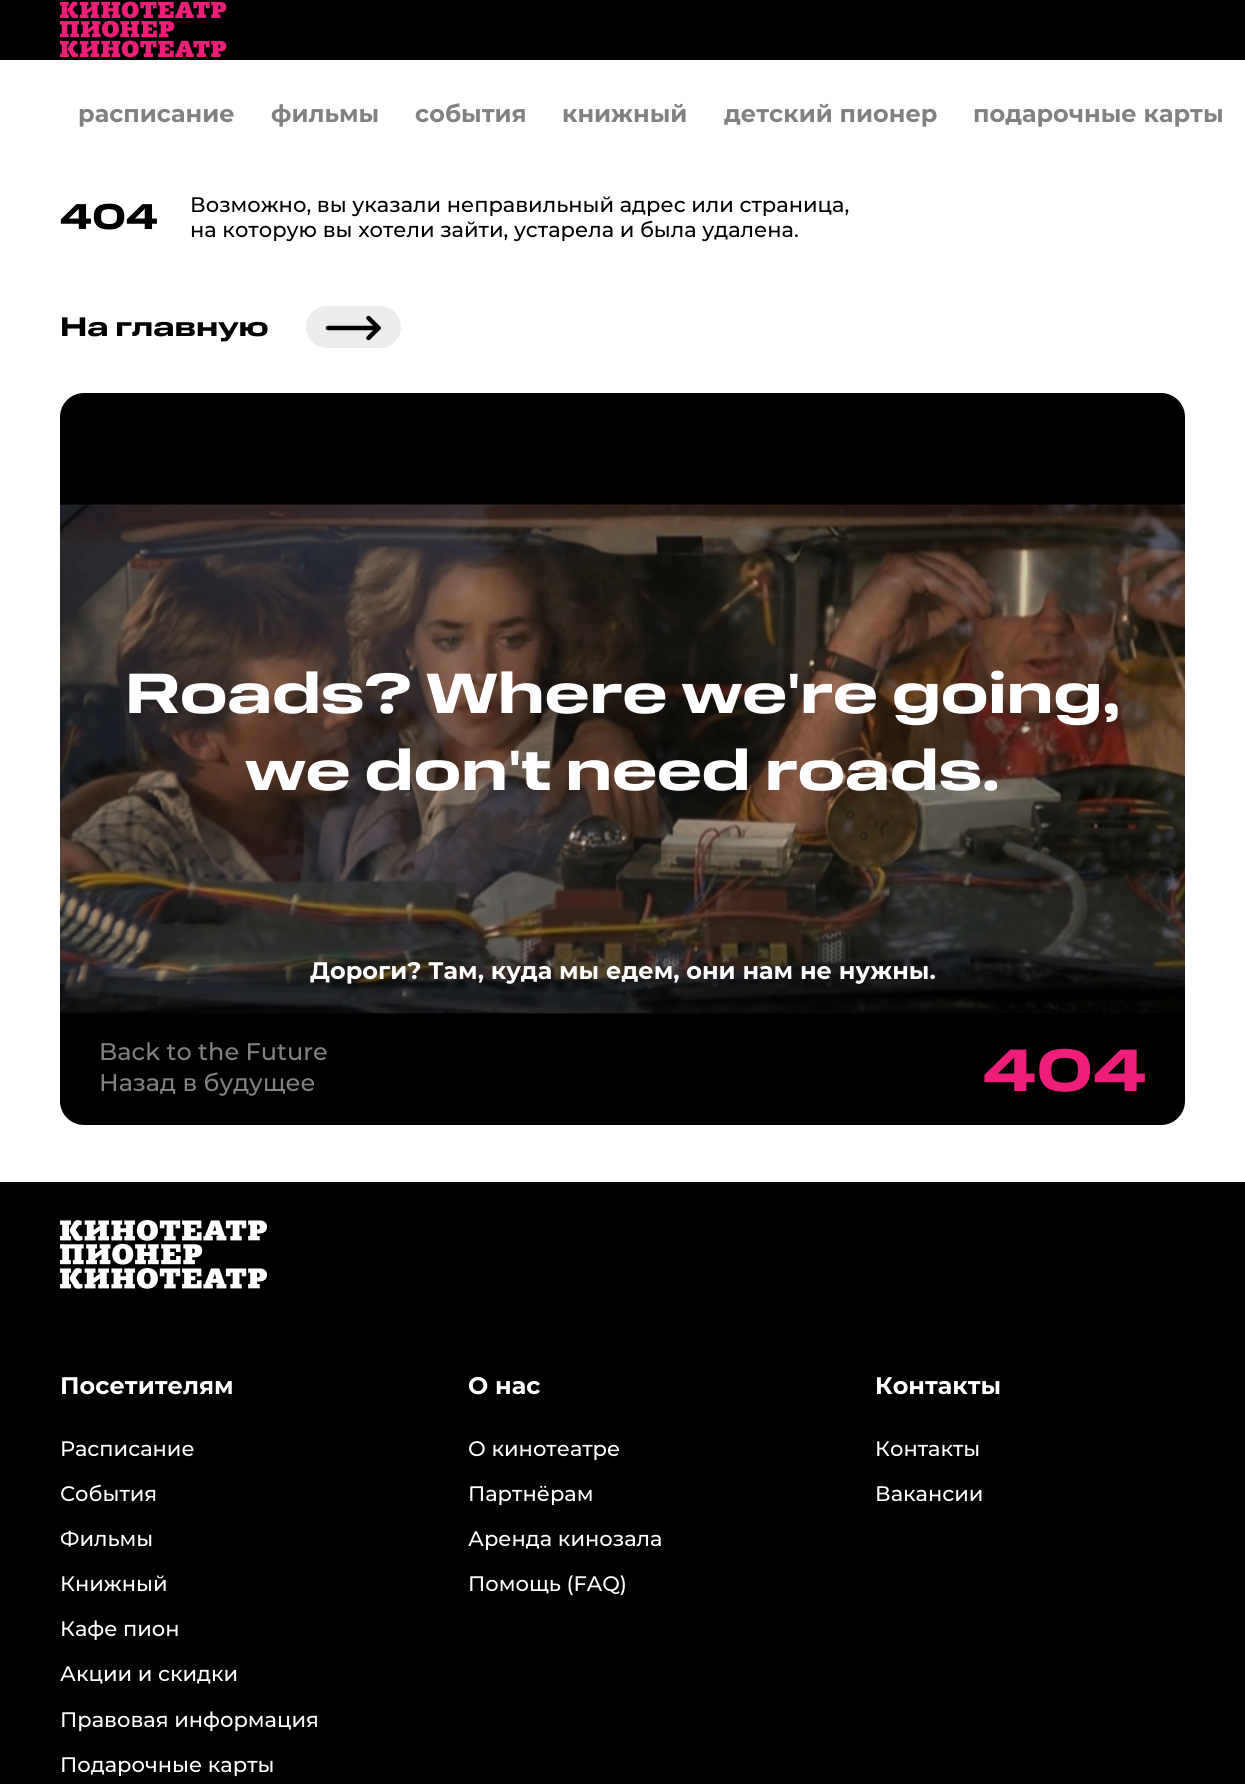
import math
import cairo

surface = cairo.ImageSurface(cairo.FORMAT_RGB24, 1245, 1784)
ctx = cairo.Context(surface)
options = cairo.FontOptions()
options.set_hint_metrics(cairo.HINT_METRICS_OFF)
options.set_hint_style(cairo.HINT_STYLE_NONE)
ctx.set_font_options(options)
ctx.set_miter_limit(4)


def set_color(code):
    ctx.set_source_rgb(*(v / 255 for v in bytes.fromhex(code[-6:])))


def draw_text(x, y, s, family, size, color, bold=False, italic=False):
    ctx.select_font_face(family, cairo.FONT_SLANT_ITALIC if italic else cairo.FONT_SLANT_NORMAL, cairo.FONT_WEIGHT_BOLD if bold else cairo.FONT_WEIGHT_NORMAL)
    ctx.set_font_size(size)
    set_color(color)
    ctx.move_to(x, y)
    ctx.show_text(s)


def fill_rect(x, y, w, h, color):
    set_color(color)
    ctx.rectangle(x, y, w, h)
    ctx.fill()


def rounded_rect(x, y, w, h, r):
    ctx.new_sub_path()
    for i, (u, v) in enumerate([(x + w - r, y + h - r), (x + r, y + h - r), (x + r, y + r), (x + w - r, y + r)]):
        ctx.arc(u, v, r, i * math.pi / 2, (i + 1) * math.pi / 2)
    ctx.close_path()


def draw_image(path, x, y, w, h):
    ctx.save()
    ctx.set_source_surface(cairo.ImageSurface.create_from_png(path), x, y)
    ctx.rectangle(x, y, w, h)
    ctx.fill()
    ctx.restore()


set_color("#ffffff")
ctx.paint()
fill_rect(0, 0, 1245, 60, "#000000")
draw_image("assets/img1.png", 60, 1, 167, 37)
draw_image("assets/img2.png", 60, 40, 167, 20)
draw_text(78, 122, "расписание", "Montserrat", 24, "#818181", bold=True)
draw_text(271, 122, "фильмы", "Montserrat", 24, "#818181", bold=True)
draw_text(415, 122, "события", "Montserrat", 24, "#818181", bold=True)
draw_text(562, 122, "книжный", "Montserrat", 24, "#818181", bold=True)
draw_text(724, 122, "детский пионер", "Montserrat", 24, "#818181", bold=True)
draw_text(973, 122, "подарочные карты", "Montserrat", 24, "#818181", bold=True)
draw_text(60, 229, "404", "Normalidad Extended", 36, "#000000", bold=True)
draw_text(190, 212, "Возможно, вы указали неправильный адрес или страница,", "Montserrat Medium", 21, "#000000")
draw_text(190, 237, "на которую вы хотели зайти, устарела и была удалена.", "Montserrat Medium", 21, "#000000")
draw_text(60, 336, "На главную", "Normalidad Extended", 27, "#000000", bold=True)
set_color("#ececec")
rounded_rect(306, 306, 95, 42, 21)
ctx.fill()
ctx.new_path()
ctx.move_to(378.5, 328)
ctx.line_to(328, 328)
set_color("#000000")
ctx.set_line_width(4.5)
ctx.set_line_cap(cairo.LINE_CAP_ROUND)
ctx.stroke()
ctx.new_path()
ctx.move_to(368.5, 318)
ctx.line_to(378.5, 328)
ctx.line_to(368.5, 338)
ctx.set_line_join(cairo.LINE_JOIN_ROUND)
ctx.stroke()
rounded_rect(60, 393, 1125, 732, 24)
ctx.fill()
draw_image("assets/img3.png", 60, 504, 1125, 510)
draw_text(125, 713, "Roads? Where we", "Normalidad Extended", 57, "#ffffff", bold=True)
draw_text(787, 713, "'", "Liberation Sans", 57, "#ffffff", bold=True)
draw_text(800, 713, "re going,", "Normalidad Extended", 57, "#ffffff", bold=True)
draw_text(245, 790, "we don", "Normalidad Extended", 57, "#ffffff", bold=True)
draw_text(508, 790, "'", "Liberation Sans", 57, "#ffffff", bold=True)
draw_text(521, 790, "t need roads.", "Normalidad Extended", 57, "#ffffff", bold=True)
draw_text(310, 979, "Дороги? Там, куда мы едем, они нам не нужны.", "Montserrat", 24, "#ffffff", bold=True)
draw_text(99, 1060, "Back to the Future", "Montserrat Medium", 24, "#818181")
draw_text(99, 1091, "Назад в будущее", "Montserrat Medium", 24, "#818181")
draw_text(983, 1091, "404", "Normalidad Extended", 60, "#ee1e7a", bold=True)
fill_rect(0, 1182, 1245, 602, "#000000")
draw_image("assets/img4.png", 60, 1220, 207, 45)
draw_image("assets/img5.png", 60, 1268, 207, 21)
draw_text(60, 1394, "Посетителям", "Montserrat", 24, "#ffffff", bold=True)
draw_text(60, 1456, "Расписание", "Montserrat Medium", 21, "#ffffff")
draw_text(60, 1501, "События", "Montserrat Medium", 21, "#ffffff")
draw_text(60, 1546, "Фильмы", "Montserrat Medium", 21, "#ffffff")
draw_text(60, 1591, "Книжный", "Montserrat Medium", 21, "#ffffff")
draw_text(60, 1636, "Кафе пион", "Montserrat Medium", 21, "#ffffff")
draw_text(60, 1681, "Акции и скидки", "Montserrat Medium", 21, "#ffffff")
draw_text(60, 1727, "Правовая информация", "Montserrat Medium", 21, "#ffffff")
draw_text(60, 1772, "Подарочные карты", "Montserrat Medium", 21, "#ffffff")
draw_text(468, 1394, "О нас", "Montserrat", 24, "#ffffff", bold=True)
draw_text(468, 1456, "О кинотеатре", "Montserrat Medium", 21, "#ffffff")
draw_text(468, 1501, "Партнёрам", "Montserrat Medium", 21, "#ffffff")
draw_text(468, 1546, "Аренда кинозала", "Montserrat Medium", 21, "#ffffff")
draw_text(468, 1591, "Помощь (FAQ)", "Montserrat Medium", 21, "#ffffff")
draw_text(875, 1394, "Контакты", "Montserrat", 24, "#ffffff", bold=True)
draw_text(875, 1456, "Контакты", "Montserrat Medium", 21, "#ffffff")
draw_text(875, 1501, "Вакансии", "Montserrat Medium", 21, "#ffffff")
surface.write_to_png("output.png")
